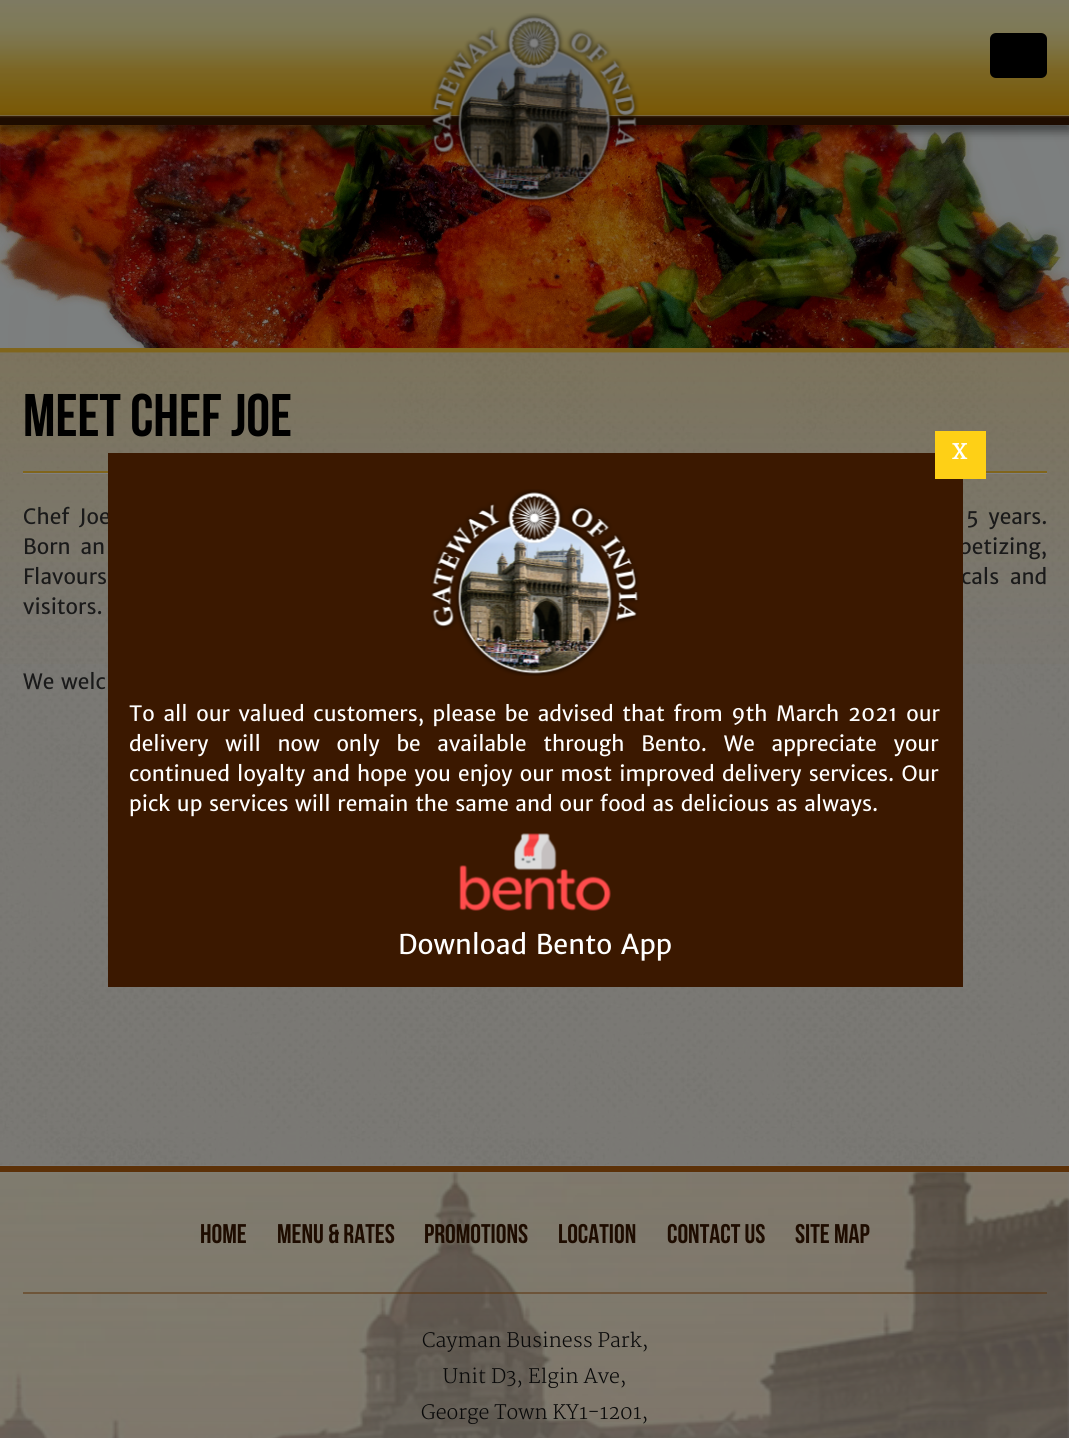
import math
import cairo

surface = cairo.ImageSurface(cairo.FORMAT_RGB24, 1069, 1438)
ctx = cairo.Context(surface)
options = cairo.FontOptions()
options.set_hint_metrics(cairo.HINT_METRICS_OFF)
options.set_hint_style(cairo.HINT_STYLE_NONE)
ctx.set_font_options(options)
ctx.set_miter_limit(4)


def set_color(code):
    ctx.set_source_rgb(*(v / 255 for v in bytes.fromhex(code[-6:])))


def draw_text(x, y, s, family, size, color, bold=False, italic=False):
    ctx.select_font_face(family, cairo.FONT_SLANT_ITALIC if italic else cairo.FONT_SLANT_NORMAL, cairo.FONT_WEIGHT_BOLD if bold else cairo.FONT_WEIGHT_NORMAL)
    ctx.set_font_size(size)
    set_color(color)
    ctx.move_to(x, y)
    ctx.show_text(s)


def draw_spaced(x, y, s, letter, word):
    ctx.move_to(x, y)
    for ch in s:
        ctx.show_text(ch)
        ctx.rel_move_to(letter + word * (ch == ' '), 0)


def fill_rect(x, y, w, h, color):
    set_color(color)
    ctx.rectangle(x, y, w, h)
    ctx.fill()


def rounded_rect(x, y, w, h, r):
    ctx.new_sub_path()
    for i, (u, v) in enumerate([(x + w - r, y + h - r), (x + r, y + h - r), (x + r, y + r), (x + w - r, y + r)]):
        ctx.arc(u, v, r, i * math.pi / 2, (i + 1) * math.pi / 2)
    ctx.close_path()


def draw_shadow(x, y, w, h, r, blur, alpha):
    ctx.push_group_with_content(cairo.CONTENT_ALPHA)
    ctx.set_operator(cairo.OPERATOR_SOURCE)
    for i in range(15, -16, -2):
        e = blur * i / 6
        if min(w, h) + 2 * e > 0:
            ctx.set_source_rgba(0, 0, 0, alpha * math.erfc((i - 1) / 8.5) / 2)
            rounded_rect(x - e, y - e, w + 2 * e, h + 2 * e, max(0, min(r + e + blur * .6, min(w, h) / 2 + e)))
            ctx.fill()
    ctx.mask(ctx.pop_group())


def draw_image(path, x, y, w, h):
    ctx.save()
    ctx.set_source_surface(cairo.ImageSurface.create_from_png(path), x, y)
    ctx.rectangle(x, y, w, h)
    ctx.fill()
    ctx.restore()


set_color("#808080")
ctx.paint()
draw_image("assets/img1.png", 0, 0, 1069, 116)
draw_image("assets/img4.png", 0, 125, 1069, 223)
set_color("#000000")
draw_shadow(0, 122, 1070, 9, 0, 5, 0.5)
draw_image("assets/img3.png", 0, 116, 1069, 9)
draw_image("assets/img2.png", 430, 13, 209, 190)
set_color("#000000")
rounded_rect(990, 33, 57, 45, 6)
ctx.fill()
fill_rect(0, 348, 1069, 5, "#80651c")
draw_image("assets/img5.png", 0, 352, 1069, 814)
draw_image("assets/img6.png", 0, 352, 1069, 312)
fill_rect(23, 473, 1024, 1, "#808080")
fill_rect(23, 471, 1024, 2, "#80651c")
draw_text(23, 436, "Meet Chef Joe", "Bebas Neue", 60, "#000000")
ctx.select_font_face("Merriweather Sans")
ctx.set_font_size(21)
set_color("#1a1a1a")
draw_spaced(23, 524, "Chef Joe", 0, 3)
draw_spaced(966, 524, "5 years.", 0, 3)
draw_spaced(23, 554, "Born an", 0, 3)
draw_spaced(959, 554, "petizing,", 0, 3)
draw_spaced(23, 584, "Flavours", 0, 4)
draw_spaced(961, 584, "cals and", 0, 4)
draw_text(23, 614, "visitors.", "Merriweather Sans", 21, "#1a1a1a")
draw_text(23, 689, "We welc", "Merriweather Sans", 21, "#1a1a1a")
fill_rect(108, 453, 855, 534, "#3b1800")
fill_rect(935, 431, 51, 48, "#fed016")
draw_text(952, 459, "X", "Merriweather", 21, "#ffffff", bold=True)
draw_image("assets/img7.png", 430, 489, 210, 187)
ctx.select_font_face("Merriweather Sans")
draw_spaced(129, 721, "To all our valued customers, please be advised that from 9th March 2021 our", 0, 1.9)
draw_spaced(129, 751, "delivery will now only be available through Bento. We appreciate your", 0, 10)
draw_spaced(129, 781, "continued loyalty and hope you enjoy our most improved delivery services. Our", 0, 0.5)
draw_text(129, 811, "pick up services will remain the same and our food as delicious as always.", "Merriweather Sans", 21, "#ffffff")
draw_image("assets/img8.png", 459, 833, 152, 78)
draw_text(398, 954, "Download Bento App", "Merriweather Sans", 27, "#ffffff")
draw_image("assets/img9.png", 0, 1172, 1069, 266)
fill_rect(0, 1166, 1069, 6, "#5c3108")
gradient = cairo.LinearGradient(535, 1172, 535, 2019)
gradient.add_color_stop_rgba(0, 0.502, 0.502, 0.502, 0.2)
gradient.add_color_stop_rgba(1, 0.502, 0.502, 0.502, 0.7)
ctx.set_source(gradient)
ctx.rectangle(0, 1172, 1069, 266)
ctx.fill()
ctx.set_source_rgba(0.361, 0.192, 0.031, 0.5)
ctx.rectangle(23, 1292, 1024, 2)
ctx.fill()
draw_text(200, 1243, "HOME", "Bebas Neue", 27, "#1e0c00")
draw_text(277, 1243, "MENU & RATES", "Bebas Neue", 27, "#1e0c00")
draw_text(424, 1243, "PROMOTIONS", "Bebas Neue", 27, "#1e0c00")
draw_text(558, 1243, "LOCATION", "Bebas Neue", 27, "#1e0c00")
draw_text(667, 1243, "CONTACT US", "Bebas Neue", 27, "#1e0c00")
draw_text(795, 1243, "SITE MAP", "Bebas Neue", 27, "#1e0c00")
draw_text(422, 1347, "Cayman Business Park,", "Merriweather Light", 19.5, "#090909")
draw_text(443, 1383, "Unit D3, Elgin Ave,", "Merriweather Light", 19.5, "#090909")
draw_text(421, 1419, "George Town KY1-1201,", "Merriweather Light", 19.5, "#090909")
surface.write_to_png("output.png")
